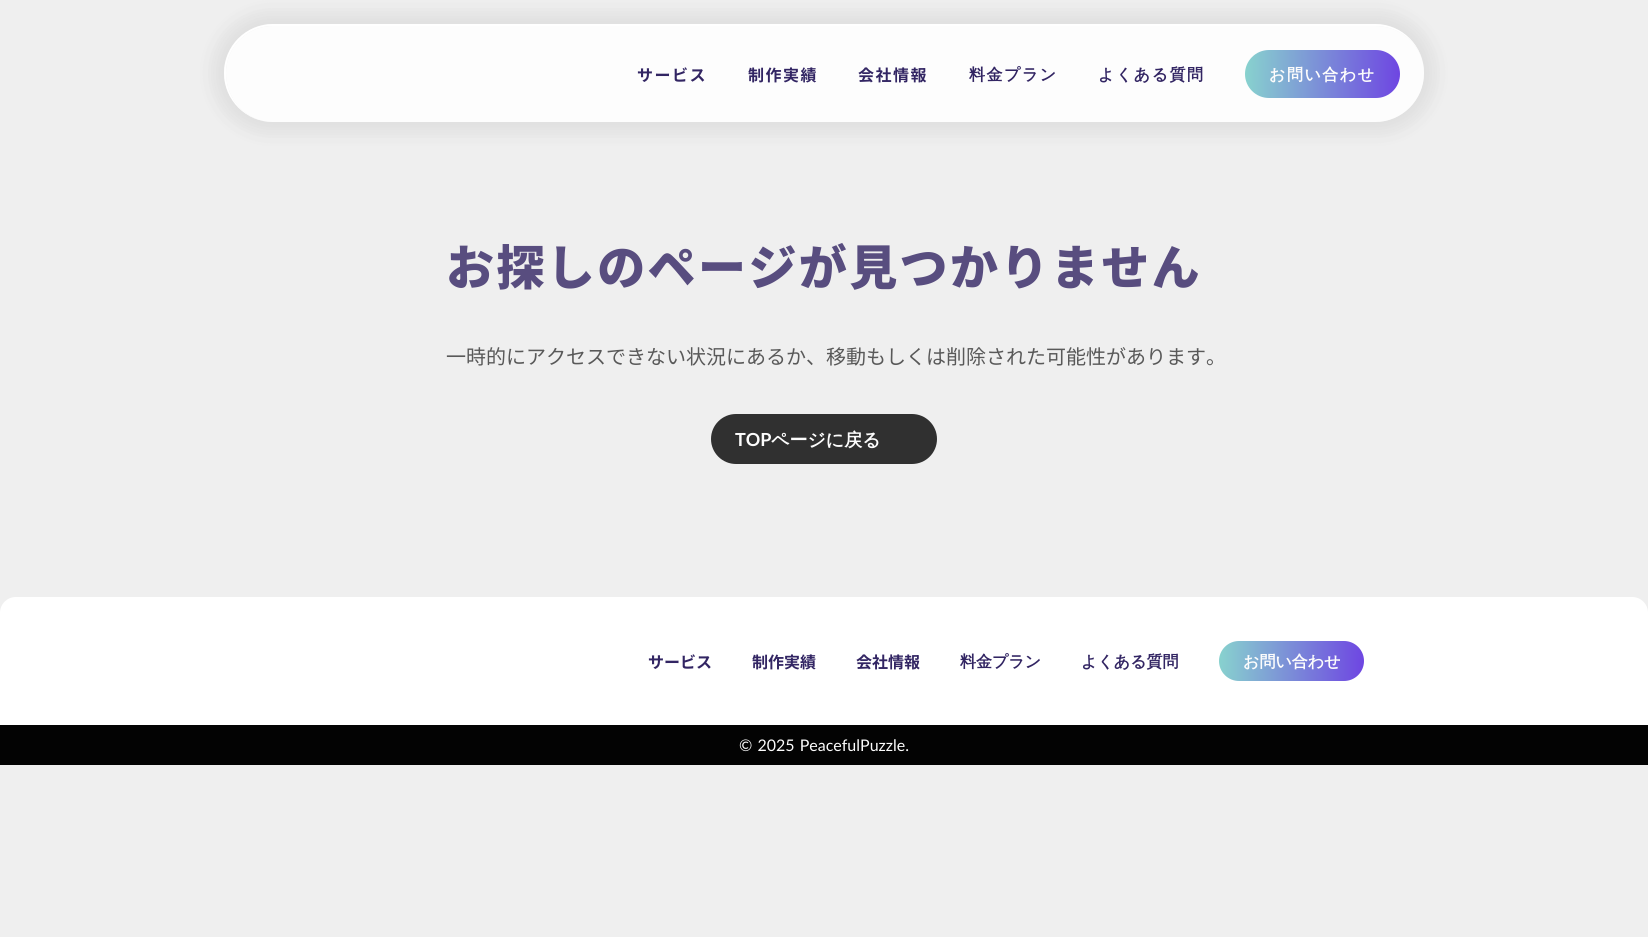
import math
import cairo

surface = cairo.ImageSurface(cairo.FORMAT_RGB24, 1648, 937)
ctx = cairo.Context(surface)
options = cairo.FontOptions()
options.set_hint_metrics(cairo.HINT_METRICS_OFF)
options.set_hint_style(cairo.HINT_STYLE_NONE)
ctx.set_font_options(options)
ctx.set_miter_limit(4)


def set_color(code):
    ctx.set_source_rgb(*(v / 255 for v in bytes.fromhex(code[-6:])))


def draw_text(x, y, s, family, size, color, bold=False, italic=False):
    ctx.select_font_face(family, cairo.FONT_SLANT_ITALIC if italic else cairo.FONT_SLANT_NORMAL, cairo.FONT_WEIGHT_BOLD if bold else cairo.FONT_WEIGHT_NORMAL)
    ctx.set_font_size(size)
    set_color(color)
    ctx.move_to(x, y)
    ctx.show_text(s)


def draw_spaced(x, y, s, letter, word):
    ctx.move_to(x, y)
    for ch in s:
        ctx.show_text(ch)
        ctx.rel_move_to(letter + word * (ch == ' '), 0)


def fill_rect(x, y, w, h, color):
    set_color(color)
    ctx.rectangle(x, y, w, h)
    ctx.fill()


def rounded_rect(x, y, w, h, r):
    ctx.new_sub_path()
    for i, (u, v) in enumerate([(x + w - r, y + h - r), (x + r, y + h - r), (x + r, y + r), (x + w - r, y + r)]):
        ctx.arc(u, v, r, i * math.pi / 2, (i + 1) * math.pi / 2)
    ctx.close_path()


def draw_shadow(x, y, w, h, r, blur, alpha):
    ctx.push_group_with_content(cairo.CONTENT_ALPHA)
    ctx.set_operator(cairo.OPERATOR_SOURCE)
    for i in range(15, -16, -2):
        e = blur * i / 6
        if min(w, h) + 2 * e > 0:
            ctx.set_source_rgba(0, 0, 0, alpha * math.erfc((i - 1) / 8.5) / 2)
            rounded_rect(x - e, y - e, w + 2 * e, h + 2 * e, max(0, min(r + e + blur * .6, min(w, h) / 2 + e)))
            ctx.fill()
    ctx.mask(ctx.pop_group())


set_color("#efefef")
ctx.paint()
ctx.save()
ctx.set_fill_rule(cairo.FILL_RULE_EVEN_ODD)
ctx.new_path()
ctx.move_to(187, 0)
ctx.line_to(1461, 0)
ctx.line_to(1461, 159)
ctx.line_to(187, 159)
ctx.close_path()
ctx.move_to(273, 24)
ctx.line_to(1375, 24)
ctx.curve_to(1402, 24, 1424, 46, 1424, 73)
ctx.curve_to(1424, 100, 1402, 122, 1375, 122)
ctx.line_to(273, 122)
ctx.curve_to(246, 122, 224, 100, 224, 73)
ctx.curve_to(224, 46, 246, 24, 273, 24)
ctx.close_path()
ctx.clip()
set_color("#888888")
draw_shadow(212, 12, 1224, 122, 61, 8, 0.15)
ctx.restore()
ctx.set_source_rgba(1, 1, 1, 0.9)
ctx.new_path()
ctx.move_to(273, 26)
ctx.line_to(1375, 26)
ctx.curve_to(1402, 26, 1424, 47, 1424, 73)
ctx.curve_to(1424, 100, 1402, 122, 1375, 122)
ctx.line_to(273, 122)
ctx.curve_to(247, 122, 226, 100, 226, 73)
ctx.curve_to(226, 47, 247, 26, 273, 26)
ctx.close_path()
ctx.fill()
set_color("#ffffff")
ctx.set_fill_rule(cairo.FILL_RULE_EVEN_ODD)
ctx.new_path()
ctx.move_to(273, 24)
ctx.line_to(1375, 24)
ctx.curve_to(1402, 24, 1424, 46, 1424, 73)
ctx.curve_to(1424, 100, 1402, 122, 1375, 122)
ctx.line_to(273, 122)
ctx.curve_to(246, 122, 224, 100, 224, 73)
ctx.curve_to(224, 46, 246, 24, 273, 24)
ctx.close_path()
ctx.move_to(273, 26)
ctx.line_to(1375, 26)
ctx.curve_to(1402, 26, 1424, 47, 1424, 73)
ctx.curve_to(1424, 100, 1402, 122, 1375, 122)
ctx.line_to(273, 122)
ctx.curve_to(247, 122, 226, 100, 226, 73)
ctx.curve_to(226, 47, 247, 26, 273, 26)
ctx.close_path()
ctx.fill()
ctx.select_font_face("Noto Sans JP", cairo.FONT_SLANT_NORMAL, cairo.FONT_WEIGHT_BOLD)
ctx.set_font_size(16)
set_color("#322563")
draw_spaced(637, 81, "サービス", 1.5, 0)
draw_spaced(748, 81, "制作実績", 1.5, 0)
draw_spaced(858, 81, "会社情報", 1.5, 0)
ctx.select_font_face("WenQuanYi Zen Hei", cairo.FONT_SLANT_NORMAL, cairo.FONT_WEIGHT_BOLD)
draw_spaced(969, 80, "料金プラン", 1.5, 0)
draw_spaced(1098, 80, "よくある質問", 1.5, 0)
gradient = cairo.LinearGradient(1244, 72, 1401, 76)
gradient.add_color_stop_rgba(0, 0.533, 0.827, 0.808, 1)
gradient.add_color_stop_rgba(1, 0.431, 0.271, 0.886, 1)
ctx.set_source(gradient)
rounded_rect(1245, 50, 155, 48, 24)
ctx.fill()
set_color("#fcfcfc")
draw_spaced(1269, 80, "お問い合わせ", 1.5, 0)
ctx.select_font_face("Noto Sans JP Black")
ctx.set_font_size(48)
set_color("#584d7f")
draw_spaced(446, 285, "お探しのページが見つかりません", 2.4, 0)
draw_text(446, 364, "一時的にアクセスできない状況にあるか、移動もしくは削除された可能性があります。", "Noto Sans JP", 20, "#595959")
set_color("#303030")
rounded_rect(711, 414, 226, 50, 25)
ctx.fill()
draw_text(735, 446, "TOP", "Lato", 18, "#fcfcfc", bold=True)
draw_text(771, 446, "ページに戻る", "WenQuanYi Zen Hei", 18, "#fcfcfc", bold=True)
set_color("#ffffff")
ctx.new_path()
ctx.move_to(16, 597)
ctx.line_to(1632, 597)
ctx.curve_to(1641, 597, 1648, 604, 1648, 613)
ctx.line_to(1648, 725)
ctx.line_to(0, 725)
ctx.line_to(0, 613)
ctx.curve_to(0, 604, 7, 597, 16, 597)
ctx.close_path()
ctx.fill()
draw_text(648, 668, "サービス", "Noto Sans JP", 16, "#322563", bold=True)
draw_text(752, 668, "制作実績", "Noto Sans JP", 16, "#322563", bold=True)
draw_text(856, 668, "会社情報", "Noto Sans JP", 16, "#322563", bold=True)
draw_text(960, 667, "料金プラン", "WenQuanYi Zen Hei", 16, "#322563", bold=True)
draw_text(1081, 667, "よくある質問", "WenQuanYi Zen Hei", 16, "#322563", bold=True)
gradient = cairo.LinearGradient(1218, 659, 1365, 663)
gradient.add_color_stop_rgba(0, 0.533, 0.827, 0.808, 1)
gradient.add_color_stop_rgba(1, 0.431, 0.271, 0.886, 1)
ctx.set_source(gradient)
rounded_rect(1219, 641, 145, 40, 20)
ctx.fill()
draw_text(1243, 667, "お問い合わせ", "WenQuanYi Zen Hei", 16, "#fcfcfc", bold=True)
fill_rect(0, 725, 1648, 40, "#030303")
ctx.select_font_face("Lato")
set_color("#fcfcfc")
draw_spaced(739, 751, "© 2025 PeacefulPuzzle.", 0, 1)
surface.write_to_png("output.png")
